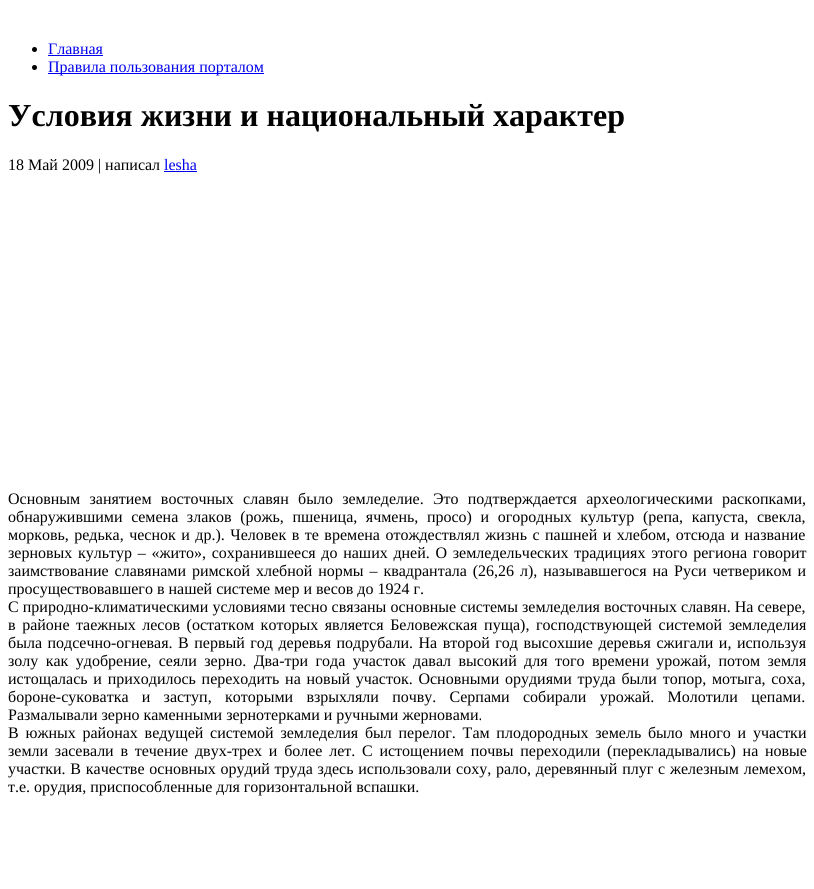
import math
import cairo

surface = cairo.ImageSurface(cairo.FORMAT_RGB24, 814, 889)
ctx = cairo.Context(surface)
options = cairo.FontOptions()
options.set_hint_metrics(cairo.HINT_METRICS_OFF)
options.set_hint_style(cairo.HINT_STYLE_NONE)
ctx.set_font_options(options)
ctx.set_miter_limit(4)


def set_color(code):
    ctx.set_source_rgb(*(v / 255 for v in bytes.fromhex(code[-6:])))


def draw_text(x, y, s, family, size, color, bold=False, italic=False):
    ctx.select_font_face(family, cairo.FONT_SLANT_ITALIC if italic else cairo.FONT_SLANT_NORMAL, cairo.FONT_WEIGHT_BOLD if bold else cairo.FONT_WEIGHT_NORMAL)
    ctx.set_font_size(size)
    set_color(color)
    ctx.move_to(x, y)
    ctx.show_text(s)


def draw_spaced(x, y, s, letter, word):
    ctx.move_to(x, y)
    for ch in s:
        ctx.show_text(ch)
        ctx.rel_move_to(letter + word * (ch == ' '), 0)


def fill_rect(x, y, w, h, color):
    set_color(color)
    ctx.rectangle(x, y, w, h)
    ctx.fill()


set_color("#ffffff")
ctx.paint()
set_color("#000000")
ctx.arc(34.5, 49.5, 2.5, 0, 2 * math.pi)
ctx.fill()
draw_text(48, 54, "Главная", "Liberation Serif", 16, "#0000ee")
fill_rect(48, 55, 55, 1, "#0000ee")
set_color("#000000")
ctx.new_path()
ctx.arc(34.5, 67.5, 2.5, 0, 2 * math.pi)
ctx.fill()
fill_rect(48, 73, 216, 1, "#0000ee")
draw_text(48, 72, "Правила пользования порталом", "Liberation Serif", 16, "#0000ee")
draw_text(8, 126, "Условия жизни и национальный характер", "Liberation Serif", 32, "#000000", bold=True)
draw_text(8, 170, "18 Май 2009 | написал", "Liberation Serif", 16, "#000000")
draw_text(164, 170, "lesha", "Liberation Serif", 16, "#0000ee")
fill_rect(164, 171, 33, 1, "#0000ee")
set_color("#000000")
draw_spaced(8, 504, "Основным занятием восточных славян было земледелие. Это подтверждается археологическими раскопками,", 0, 5.25)
draw_spaced(8, 522, "обнаружившими семена злаков (рожь, пшеница, ячмень, просо) и огородных культур (репа, капуста, свекла,", 0, 4.6)
draw_spaced(8, 540, "морковь, редька, чеснок и др.). Человек в те времена отождествлял жизнь с пашней и хлебом, отсюда и название", 0, 1.5)
draw_spaced(8, 558, "зерновых культур – «жито», сохранившееся до наших дней. О земледельческих традициях этого региона говорит", 0, 1.7)
draw_spaced(8, 576, "заимствование славянами римской хлебной нормы – квадрантала (26,26 л), называвшегося на Руси четвериком и", 0, 1.9)
draw_text(8, 594, "просуществовавшего в нашей системе мер и весов до 1924 г.", "Liberation Serif", 16, "#000000")
draw_spaced(8, 612, "С природно-климатическими условиями тесно связаны основные системы земледелия восточных славян. На севере,", 0, 0.1)
draw_spaced(8, 630, "в районе таежных лесов (остатком которых является Беловежская пуща), господствующей системой земледелия", 0, 2.6)
draw_spaced(8, 648, "была подсечно-огневая. В первый год деревья подрубали. На второй год высохшие деревья сжигали и, используя", 0, 1.5)
draw_spaced(8, 666, "золу как удобрение, сеяли зерно. Два-три года участок давал высокий для того времени урожай, потом земля", 0, 3.4)
draw_spaced(8, 684, "истощалась и приходилось переходить на новый участок. Основными орудиями труда были топор, мотыга, соха,", 0, 1.75)
draw_spaced(8, 702, "бороне-суковатка и заступ, которыми взрыхляли почву. Серпами собирали урожай. Молотили цепами.", 0, 9.25)
draw_text(8, 720, "Размалывали зерно каменными зернотерками и ручными жерновами.", "Liberation Serif", 16, "#000000")
draw_spaced(8, 738, "В южных районах ведущей системой земледелия был перелог. Там плодородных земель было много и участки", 0, 2.75)
draw_spaced(8, 756, "земли засевали в течение двух-трех и более лет. С истощением почвы переходили (перекладывались) на новые", 0, 2.75)
draw_spaced(8, 774, "участки. В качестве основных орудий труда здесь использовали соху, рало, деревянный плуг с железным лемехом,", 0, 0.75)
draw_text(8, 792, "т.е. орудия, приспособленные для горизонтальной вспашки.", "Liberation Serif", 16, "#000000")
surface.write_to_png("output.png")
